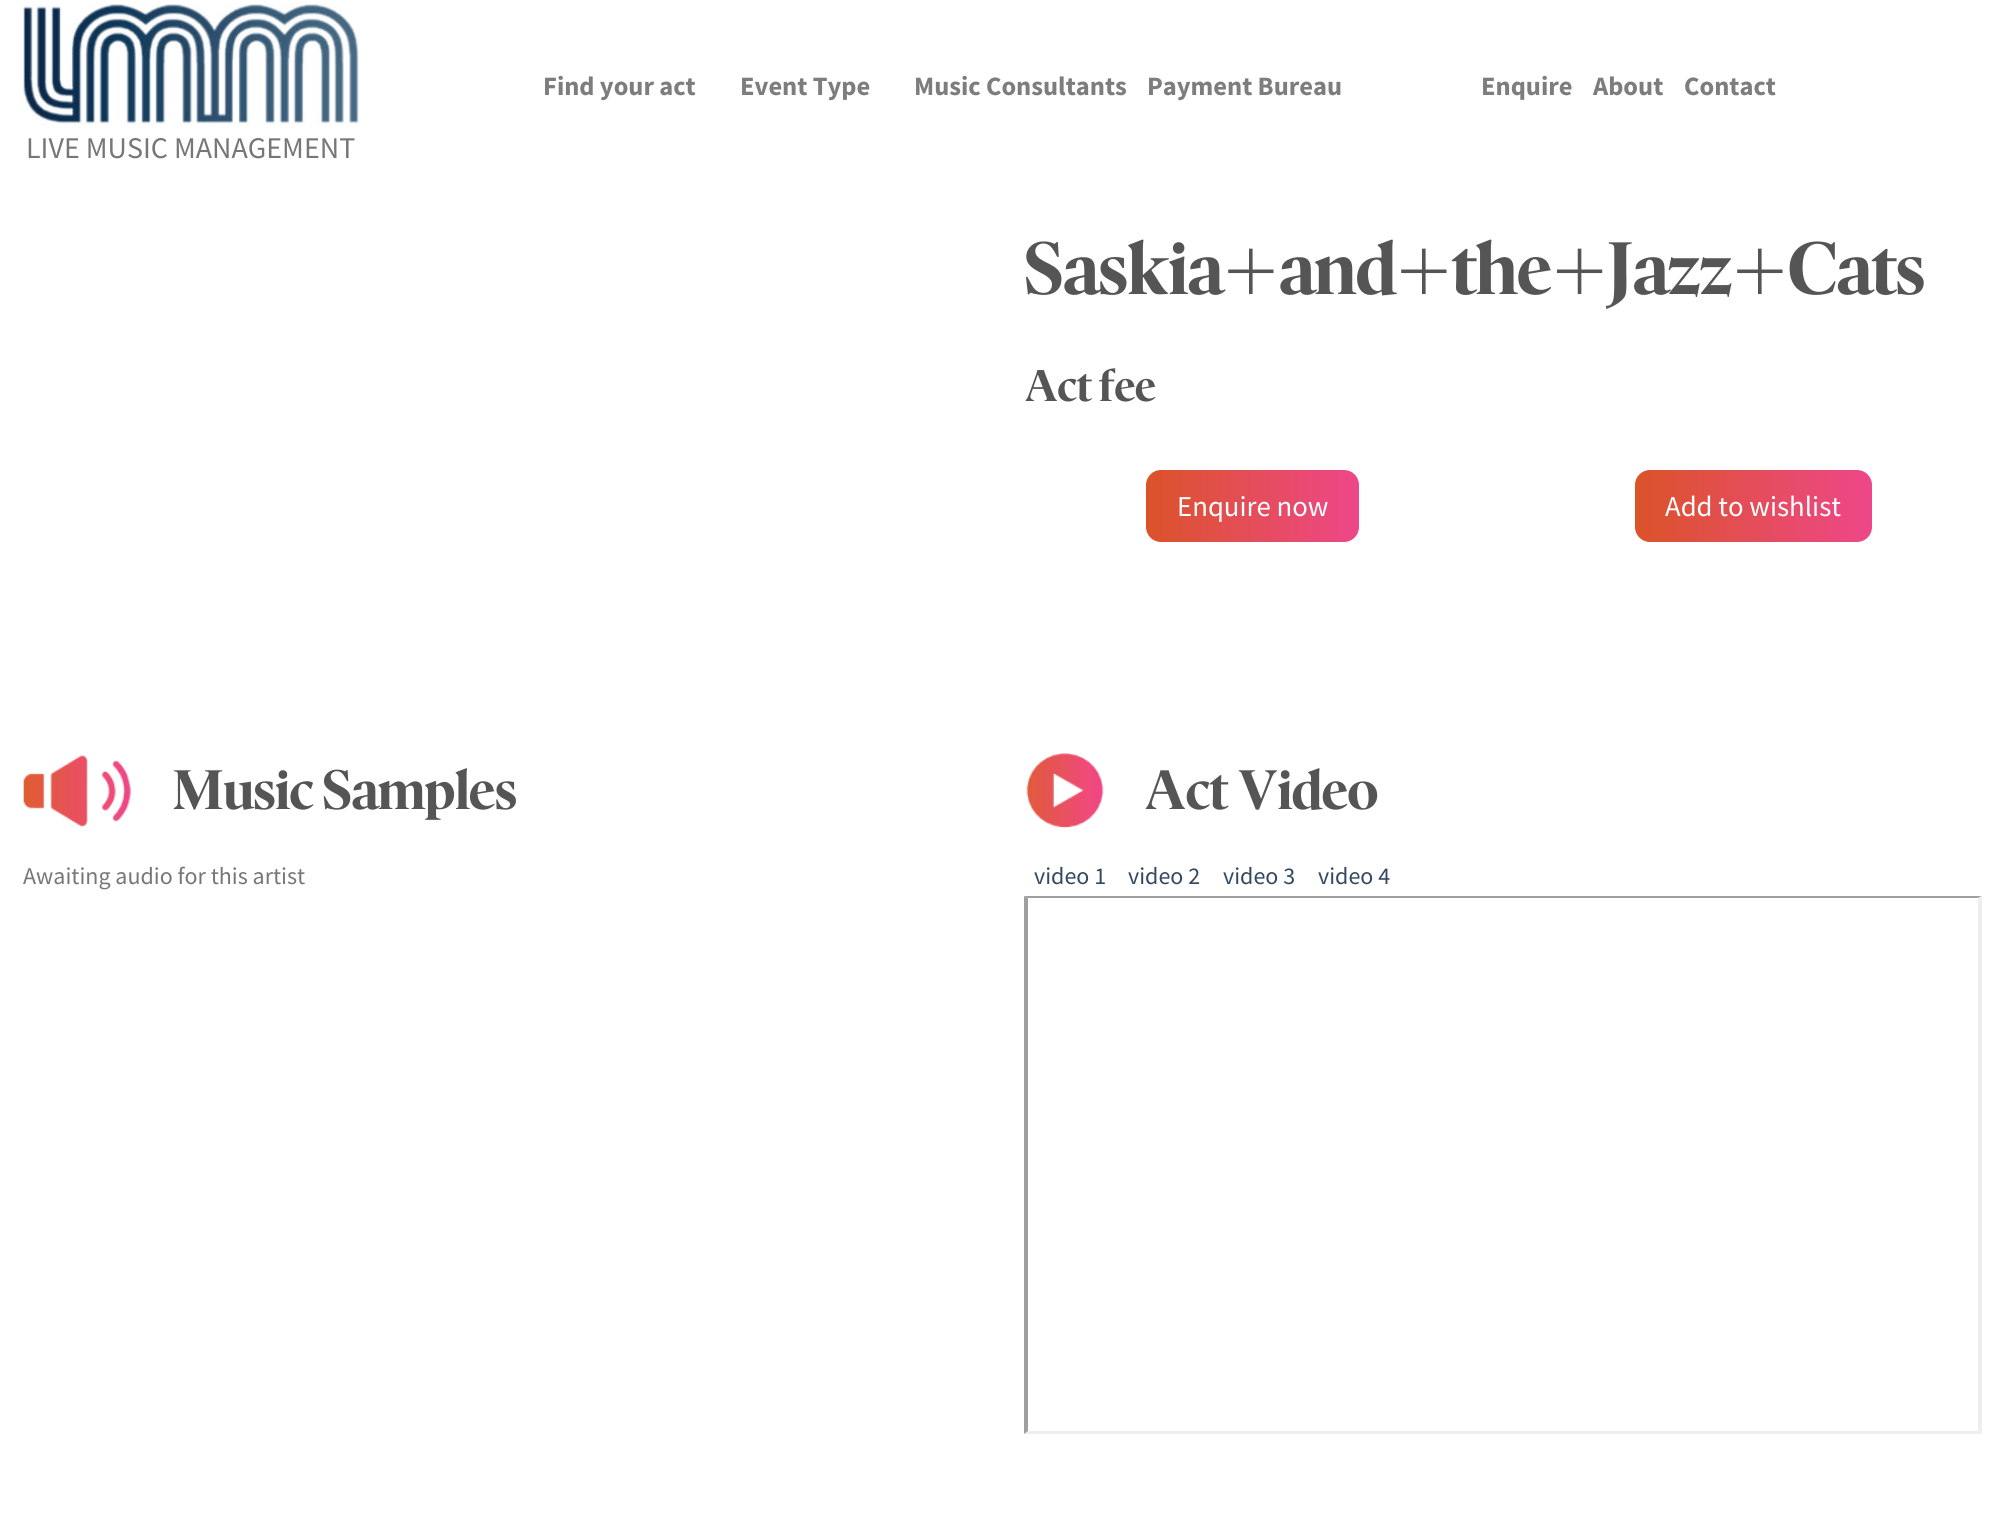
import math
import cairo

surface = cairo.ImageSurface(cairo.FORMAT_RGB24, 2003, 1514)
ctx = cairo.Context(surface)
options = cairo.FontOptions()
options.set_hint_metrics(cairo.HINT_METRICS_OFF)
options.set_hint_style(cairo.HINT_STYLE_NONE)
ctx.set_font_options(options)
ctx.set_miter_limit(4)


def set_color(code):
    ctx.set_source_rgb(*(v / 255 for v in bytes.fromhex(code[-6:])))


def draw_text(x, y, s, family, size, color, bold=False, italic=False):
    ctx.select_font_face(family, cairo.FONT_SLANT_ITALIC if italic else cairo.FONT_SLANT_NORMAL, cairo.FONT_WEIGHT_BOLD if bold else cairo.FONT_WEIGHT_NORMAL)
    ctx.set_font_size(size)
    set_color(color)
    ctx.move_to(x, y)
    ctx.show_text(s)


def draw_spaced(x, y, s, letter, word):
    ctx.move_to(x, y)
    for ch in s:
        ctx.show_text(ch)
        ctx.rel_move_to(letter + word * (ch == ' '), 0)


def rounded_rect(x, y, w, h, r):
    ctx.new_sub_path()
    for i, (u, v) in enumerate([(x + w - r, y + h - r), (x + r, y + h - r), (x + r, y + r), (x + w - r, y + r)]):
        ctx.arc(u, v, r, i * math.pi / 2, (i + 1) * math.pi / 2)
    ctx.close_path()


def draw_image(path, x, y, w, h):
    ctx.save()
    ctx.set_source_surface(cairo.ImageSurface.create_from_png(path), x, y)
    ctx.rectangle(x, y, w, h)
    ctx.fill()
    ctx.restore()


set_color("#ffffff")
ctx.paint()
draw_text(543, 95, "Find your act", "Source Sans Pro", 26.5, "#7d7d7d", bold=True)
draw_text(740, 95, "Event Type", "Source Sans Pro", 26.5, "#7d7d7d", bold=True)
draw_text(914, 95, "Music Consultants", "Source Sans Pro", 26.5, "#7d7d7d", bold=True)
draw_text(1147, 95, "Payment Bureau", "Source Sans Pro", 26.5, "#7d7d7d", bold=True)
draw_text(1481, 95, "Enquire", "Source Sans Pro", 26.5, "#7d7d7d", bold=True)
draw_text(1593, 95, "About", "Source Sans Pro", 26.5, "#7d7d7d", bold=True)
draw_text(1684, 95, "Contact", "Source Sans Pro", 26.5, "#7d7d7d", bold=True)
draw_image("assets/img1.png", 22, 4, 337, 121)
draw_text(26, 158, "LIVE MUSIC MANAGEMENT", "Source Sans Pro", 30, "#777777")
draw_text(1025, 294, "Saskia+and+the+Jazz+Cats", "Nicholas", 76.75, "#555555", bold=True)
draw_text(1025, 401, "Act fee", "Nicholas", 46, "#555555", bold=True)
gradient = cairo.LinearGradient(1146, 506, 1359, 506)
gradient.add_color_stop_rgba(0, 0.859, 0.325, 0.161, 1)
gradient.add_color_stop_rgba(1, 0.933, 0.278, 0.541, 1)
ctx.set_source(gradient)
rounded_rect(1146, 470, 213, 72, 15)
ctx.fill()
draw_text(1177, 516, "Enquire now", "Source Sans Pro", 28.75, "#ffffff")
gradient = cairo.LinearGradient(1635, 506, 1872, 506)
gradient.add_color_stop_rgba(0, 0.859, 0.325, 0.161, 1)
gradient.add_color_stop_rgba(1, 0.933, 0.278, 0.541, 1)
ctx.set_source(gradient)
rounded_rect(1635, 470, 237, 72, 15)
ctx.fill()
draw_text(1665, 516, "Add to wishlist", "Source Sans Pro", 28.75, "#ffffff")
draw_image("assets/img2.png", 23, 755, 108, 72)
ctx.select_font_face("Nicholas", cairo.FONT_SLANT_NORMAL, cairo.FONT_WEIGHT_BOLD)
ctx.set_font_size(57.5)
set_color("#555555")
draw_spaced(173, 809, "Music Samples", 0, -1)
draw_text(23, 884, "Awaiting audio for this artist", "Source Sans Pro", 24, "#777777")
draw_image("assets/img3.png", 1026, 753, 78, 75)
draw_text(1145, 809, "Act Video", "Nicholas", 57.5, "#555555", bold=True)
draw_text(1034, 884, "video 1", "Source Sans Pro", 24, "#334862")
draw_text(1128, 884, "video 2", "Source Sans Pro", 24, "#334862")
draw_text(1223, 884, "video 3", "Source Sans Pro", 24, "#334862")
draw_text(1318, 884, "video 4", "Source Sans Pro", 24, "#334862")
set_color("#9f9f9f")
ctx.new_path()
ctx.move_to(1024, 896)
ctx.line_to(1982, 896)
ctx.line_to(1978, 898)
ctx.line_to(1028, 898)
ctx.close_path()
ctx.fill()
set_color("#eeeeee")
ctx.new_path()
ctx.move_to(1982, 896)
ctx.line_to(1982, 1434)
ctx.line_to(1978, 1431)
ctx.line_to(1978, 898)
ctx.close_path()
ctx.fill()
ctx.new_path()
ctx.move_to(1982, 1434)
ctx.line_to(1024, 1434)
ctx.line_to(1028, 1431)
ctx.line_to(1978, 1431)
ctx.close_path()
ctx.fill()
set_color("#9f9f9f")
ctx.new_path()
ctx.move_to(1024, 1434)
ctx.line_to(1024, 896)
ctx.line_to(1028, 898)
ctx.line_to(1028, 1431)
ctx.close_path()
ctx.fill()
surface.write_to_png("output.png")
